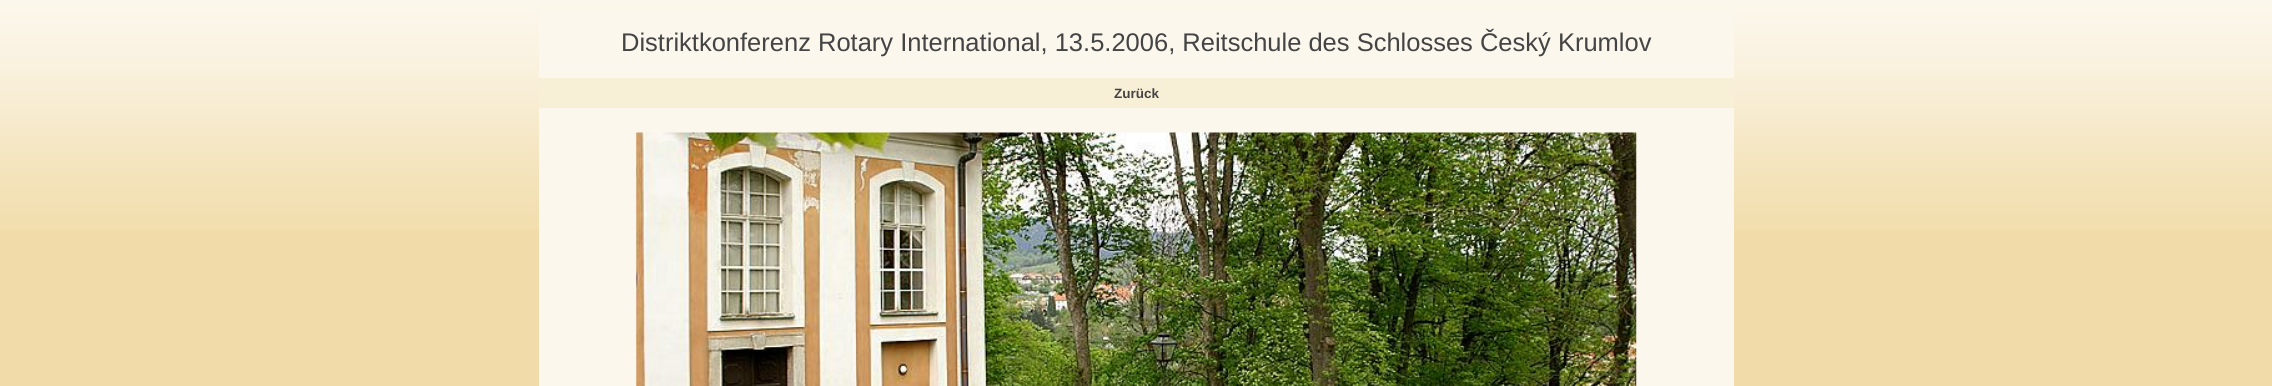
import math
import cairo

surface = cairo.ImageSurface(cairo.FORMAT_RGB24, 2272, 386)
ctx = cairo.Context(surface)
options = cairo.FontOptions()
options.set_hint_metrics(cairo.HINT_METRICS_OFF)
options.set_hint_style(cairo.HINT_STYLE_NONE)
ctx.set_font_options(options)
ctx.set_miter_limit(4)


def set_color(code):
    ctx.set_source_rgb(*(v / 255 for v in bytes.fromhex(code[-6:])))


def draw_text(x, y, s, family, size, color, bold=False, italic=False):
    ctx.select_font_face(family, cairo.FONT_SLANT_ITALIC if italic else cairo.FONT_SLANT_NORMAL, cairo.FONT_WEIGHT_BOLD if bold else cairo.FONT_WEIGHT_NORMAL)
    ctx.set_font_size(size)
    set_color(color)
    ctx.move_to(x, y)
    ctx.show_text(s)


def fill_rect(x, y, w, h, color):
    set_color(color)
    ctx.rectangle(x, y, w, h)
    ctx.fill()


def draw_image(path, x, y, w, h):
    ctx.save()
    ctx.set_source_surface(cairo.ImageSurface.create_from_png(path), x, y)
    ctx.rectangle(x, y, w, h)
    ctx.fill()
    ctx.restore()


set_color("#f1dca9")
ctx.paint()
draw_image("assets/img1.png", 0, 0, 2272, 230)
fill_rect(539, 10, 1195, 376, "#fbf7ed")
draw_text(621, 51, "Distriktkonferenz Rotary International, 13.5.2006, Reitschule des Schlosses Český Krumlov", "Liberation Sans", 25.5, "#444444")
fill_rect(539, 78, 1195, 30, "#f8efd7")
draw_text(1114, 98, "Zurück", "Liberation Sans", 13.5, "#444444", bold=True)
draw_image("assets/img2.png", 636, 132, 1001, 254)
surface.write_to_png("output.png")
